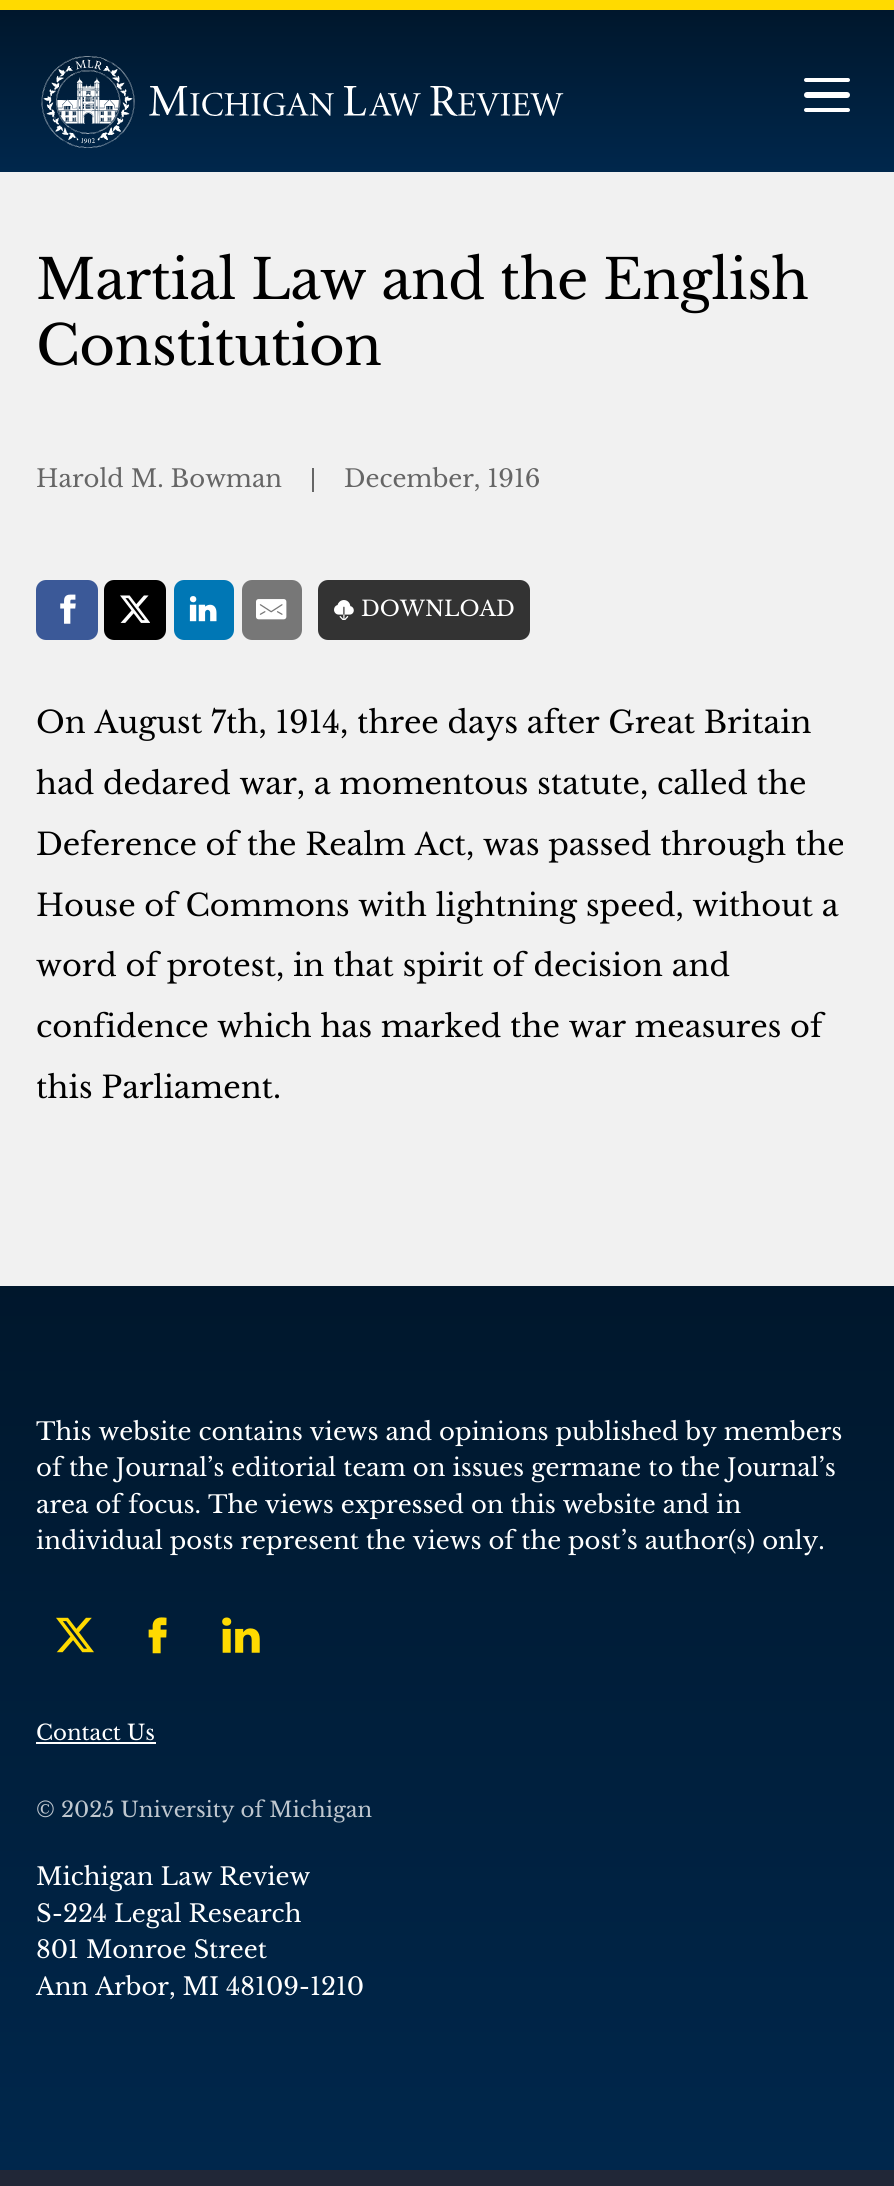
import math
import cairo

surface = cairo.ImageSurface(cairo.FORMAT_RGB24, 894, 2186)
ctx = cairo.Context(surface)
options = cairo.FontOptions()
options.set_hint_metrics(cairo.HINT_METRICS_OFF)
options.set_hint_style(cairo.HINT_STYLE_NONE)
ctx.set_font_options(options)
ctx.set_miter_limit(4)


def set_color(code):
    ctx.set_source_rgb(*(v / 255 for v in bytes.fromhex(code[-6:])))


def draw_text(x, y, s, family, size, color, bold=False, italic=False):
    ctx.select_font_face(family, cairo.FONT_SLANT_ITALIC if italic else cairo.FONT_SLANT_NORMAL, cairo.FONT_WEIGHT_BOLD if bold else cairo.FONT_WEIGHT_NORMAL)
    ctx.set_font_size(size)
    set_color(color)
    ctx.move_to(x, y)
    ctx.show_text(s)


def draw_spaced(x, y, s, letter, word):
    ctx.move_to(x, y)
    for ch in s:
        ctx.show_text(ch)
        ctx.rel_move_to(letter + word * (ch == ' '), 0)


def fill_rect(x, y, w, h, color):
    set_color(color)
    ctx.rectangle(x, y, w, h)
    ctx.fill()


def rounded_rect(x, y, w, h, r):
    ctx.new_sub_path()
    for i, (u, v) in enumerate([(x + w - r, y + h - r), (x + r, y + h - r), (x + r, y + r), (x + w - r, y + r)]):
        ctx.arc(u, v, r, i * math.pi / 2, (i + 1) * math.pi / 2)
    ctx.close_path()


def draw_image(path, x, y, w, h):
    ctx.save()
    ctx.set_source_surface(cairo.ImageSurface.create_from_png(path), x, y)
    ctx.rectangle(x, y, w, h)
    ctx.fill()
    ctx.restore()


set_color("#f1f1f1")
ctx.paint()
gradient = cairo.LinearGradient(447, 10, 447, 172)
gradient.add_color_stop_rgba(0, 0, 0.09, 0.173, 1)
gradient.add_color_stop_rgba(1, 0, 0.153, 0.298, 1)
ctx.set_source(gradient)
ctx.rectangle(0, 10, 894, 162)
ctx.fill()
fill_rect(0, 0, 894, 10, "#ffda00")
draw_image("assets/img1.png", 41, 56, 523, 92)
set_color("#ffffff")
rounded_rect(804, 92, 46, 6, 3)
ctx.fill()
rounded_rect(804, 78, 46, 4, 2)
ctx.fill()
rounded_rect(804, 108, 46, 4, 2)
ctx.fill()
ctx.select_font_face("Libre Baskerville")
ctx.set_font_size(54.75)
set_color("#000000")
draw_spaced(36, 299, "Martial Law and the English", -0.55, 0)
draw_spaced(36, 365, "Constitution", -0.55, 0)
draw_text(36, 487, "Harold M. Bowman", "Libre Baskerville", 24.3, "#666666")
fill_rect(312, 468, 2, 24, "#666666")
draw_text(344, 487, "December, 1916", "Libre Baskerville", 24.3, "#666666")
set_color("#3b5998")
rounded_rect(36, 580, 62, 60, 10)
ctx.fill()
draw_image("assets/img2.png", 60, 594, 16, 30)
set_color("#000000")
rounded_rect(104, 580, 62, 60, 10)
ctx.fill()
draw_image("assets/img3.png", 120, 595, 30, 28)
set_color("#0077b5")
rounded_rect(174, 580, 60, 60, 10)
ctx.fill()
draw_image("assets/img4.png", 189, 596, 28, 26)
set_color("#777777")
rounded_rect(242, 580, 60, 60, 10)
ctx.fill()
draw_image("assets/img5.png", 256, 599, 31, 21)
set_color("#333333")
rounded_rect(318, 580, 212, 60, 10)
ctx.fill()
draw_image("assets/img6.png", 334, 600, 20, 20)
draw_text(361, 616, "DOWNLOAD", "Libre Baskerville", 21.25, "#ffffff")
draw_text(36, 733, "On August 7th, 1914, three days after Great Britain", "Libre Baskerville", 30.4, "#000000")
draw_text(36, 794, "had dedared war, a momentous statute, called the", "Libre Baskerville", 30.4, "#000000")
draw_text(36, 855, "Deference of the Realm Act, was passed through the", "Libre Baskerville", 30.4, "#000000")
draw_text(36, 916, "House of Commons with lightning speed, without a", "Libre Baskerville", 30.4, "#000000")
draw_text(36, 976, "word of protest, in that spirit of decision and", "Libre Baskerville", 30.4, "#000000")
draw_text(36, 1037, "confidence which has marked the war measures of", "Libre Baskerville", 30.4, "#000000")
draw_text(36, 1098, "this Parliament.", "Libre Baskerville", 30.4, "#000000")
gradient = cairo.LinearGradient(447, 1286, 447, 2170)
gradient.add_color_stop_rgba(0, 0, 0.09, 0.173, 1)
gradient.add_color_stop_rgba(1, 0, 0.153, 0.298, 1)
ctx.set_source(gradient)
ctx.rectangle(0, 1286, 894, 884)
ctx.fill()
draw_text(36, 1440, "This website contains views and opinions published by members", "Libre Baskerville", 24.3, "#ffffff")
draw_text(36, 1476, "of the Journal’s editorial team on issues germane to the Journal’s", "Libre Baskerville", 24.3, "#ffffff")
draw_text(36, 1513, "area of focus. The views expressed on this website and in", "Libre Baskerville", 24.3, "#ffffff")
draw_text(36, 1549, "individual posts represent the views of the post’s author(s) only.", "Libre Baskerville", 24.3, "#ffffff")
draw_image("assets/img7.png", 56, 1617, 38, 36)
draw_image("assets/img8.png", 148, 1617, 19, 37)
draw_image("assets/img9.png", 222, 1617, 38, 36)
draw_text(36, 1740, "Contact Us", "Libre Baskerville", 21.25, "#ffffff")
fill_rect(36, 1742, 120, 2, "#ffffff")
draw_text(36, 1817, "© 2025 University of Michigan", "Libre Baskerville", 21.25, "#bfc7cf")
draw_text(36, 1885, "Michigan Law Review", "Libre Baskerville", 24.3, "#ffffff")
draw_text(36, 1922, "S-224 Legal Research", "Libre Baskerville", 24.3, "#ffffff")
draw_text(36, 1958, "801 Monroe Street", "Libre Baskerville", 24.3, "#ffffff")
draw_text(36, 1995, "Ann Arbor, MI 48109-1210", "Libre Baskerville", 24.3, "#ffffff")
fill_rect(0, 2170, 894, 16, "#212737")
surface.write_to_png("output.png")
